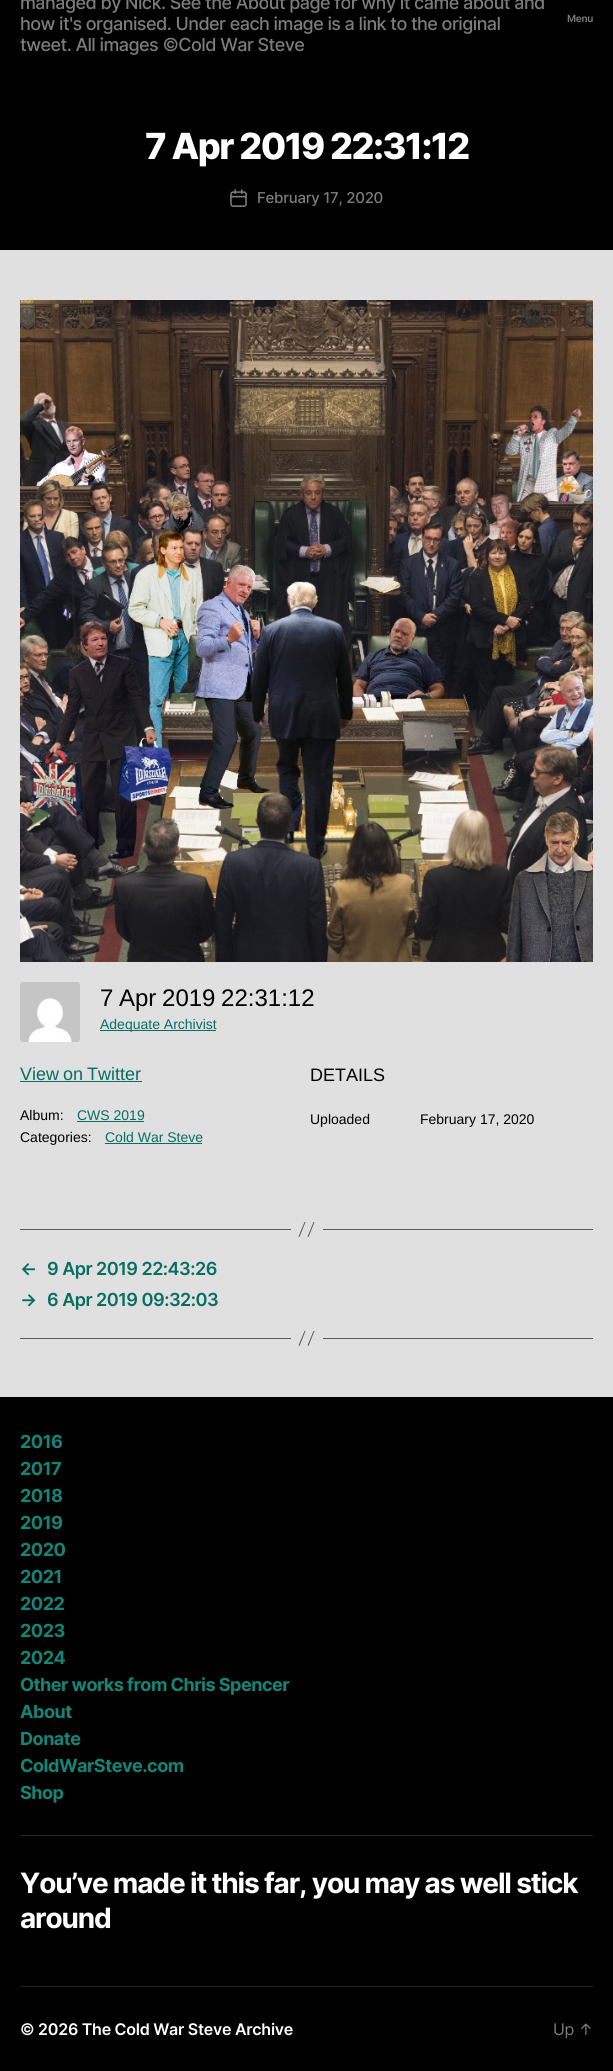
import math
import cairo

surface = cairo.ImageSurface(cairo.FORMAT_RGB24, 613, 2071)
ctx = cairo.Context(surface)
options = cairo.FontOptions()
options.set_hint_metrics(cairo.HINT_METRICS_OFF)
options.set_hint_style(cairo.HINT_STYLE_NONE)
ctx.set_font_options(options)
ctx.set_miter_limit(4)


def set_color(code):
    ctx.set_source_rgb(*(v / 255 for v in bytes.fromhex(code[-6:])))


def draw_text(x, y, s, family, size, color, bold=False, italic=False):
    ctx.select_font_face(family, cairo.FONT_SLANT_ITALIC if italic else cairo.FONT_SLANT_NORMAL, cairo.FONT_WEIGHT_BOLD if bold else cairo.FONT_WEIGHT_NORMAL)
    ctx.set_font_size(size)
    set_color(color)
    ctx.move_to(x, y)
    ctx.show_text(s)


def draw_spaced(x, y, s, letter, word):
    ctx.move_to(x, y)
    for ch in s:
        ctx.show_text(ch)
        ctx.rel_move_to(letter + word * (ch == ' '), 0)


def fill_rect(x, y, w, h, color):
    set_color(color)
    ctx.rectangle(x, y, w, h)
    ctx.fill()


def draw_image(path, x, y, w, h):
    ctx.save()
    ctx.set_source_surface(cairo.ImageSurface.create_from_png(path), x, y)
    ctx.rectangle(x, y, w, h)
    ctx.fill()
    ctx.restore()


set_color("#e0e0e0")
ctx.paint()
fill_rect(0, 0, 613, 250, "#000000")
ctx.select_font_face("Inter Medium")
ctx.set_font_size(18)
set_color("#7c7c7c")
draw_spaced(20, 9, "managed by Nick. See the About page for why it came about and", -0.55, 0)
draw_spaced(20, 30, "how it's organised. Under each image is a link to the original", -0.55, 0)
draw_spaced(20, 51, "tweet. All images ©Cold War Steve", -0.55, 0)
ctx.select_font_face("Inter SemiBold")
ctx.set_font_size(10)
draw_spaced(567, 22, "Menu", -0.25, 0)
ctx.select_font_face("Inter ExtraBold")
ctx.set_font_size(36)
set_color("#ffffff")
draw_spaced(145, 159, "7 Apr 2019 22:31:12", -1.5, 0)
draw_image("assets/img1.png", 230, 189, 17, 18)
ctx.select_font_face("Inter Medium")
ctx.set_font_size(15)
set_color("#7c7c7c")
draw_spaced(257, 203, "February 17, 2020", -0.25, 0)
draw_image("assets/img2.png", 20, 300, 573, 662)
draw_image("assets/img3.png", 20, 982, 60, 60)
ctx.select_font_face("Liberation Sans")
ctx.set_font_size(24)
set_color("#000000")
draw_spaced(100, 1006, "7 Apr 2019 22:31:12", 0, -1)
fill_rect(100, 1030, 116, 1, "#076e62")
draw_text(100, 1029, "Adequate Archivist", "Liberation Sans", 14, "#076e62")
ctx.set_font_size(18)
draw_spaced(20, 1080, "View on Twitter", 0, -1)
fill_rect(20, 1081, 122, 1, "#076e62")
draw_text(20, 1120, "Album:", "Liberation Sans", 14, "#000000")
draw_text(77, 1120, "CWS 2019", "Liberation Sans", 14, "#076e62")
fill_rect(77, 1121, 67, 1, "#076e62")
draw_text(20, 1142, "Categories:", "Liberation Sans", 14, "#000000")
draw_text(105, 1142, "Cold War Steve", "Liberation Sans", 14, "#076e62")
fill_rect(105, 1143, 97, 1, "#076e62")
draw_text(310, 1081, "DETAILS", "Liberation Sans", 18, "#000000")
draw_text(310, 1124, "Uploaded", "Liberation Sans", 14, "#000000")
draw_text(420, 1124, "February 17, 2020", "Liberation Sans", 14, "#000000")
fill_rect(323, 1229, 270, 1, "#5b5b5b")
fill_rect(20, 1229, 271, 1, "#5b5b5b")
ctx.new_path()
ctx.move_to(304.5, 1222)
ctx.line_to(305.5, 1222)
ctx.line_to(299.5, 1237)
ctx.line_to(298.5, 1236.5)
ctx.close_path()
ctx.move_to(313.5, 1222)
ctx.line_to(314.5, 1222)
ctx.line_to(308.5, 1237)
ctx.line_to(307.5, 1236.5)
ctx.close_path()
ctx.fill()
ctx.select_font_face("Inter SemiBold")
ctx.set_font_size(18)
set_color("#076e62")
draw_spaced(20, 1275, "←", -0.5, 0)
draw_spaced(47, 1275, "9 Apr 2019 22:43:26", -0.5, 0)
draw_spaced(20, 1306, "→", -0.5, 0)
draw_spaced(47, 1306, "6 Apr 2019 09:32:03", -0.5, 0)
fill_rect(323, 1338, 270, 1, "#5b5b5b")
fill_rect(20, 1338, 271, 1, "#5b5b5b")
ctx.new_path()
ctx.move_to(304.5, 1331)
ctx.line_to(305.5, 1331)
ctx.line_to(299.5, 1346)
ctx.line_to(298.5, 1345.5)
ctx.close_path()
ctx.move_to(313.5, 1331)
ctx.line_to(314.5, 1331)
ctx.line_to(308.5, 1346)
ctx.line_to(307.5, 1345.5)
ctx.close_path()
ctx.fill()
fill_rect(0, 1397, 613, 674, "#000000")
fill_rect(20, 1835, 573, 1, "#262626")
ctx.select_font_face("Inter", cairo.FONT_SLANT_NORMAL, cairo.FONT_WEIGHT_BOLD)
set_color("#148477")
draw_spaced(20, 1448, "2016", -0.5, 0)
draw_spaced(20, 1475, "2017", -0.5, 0)
draw_spaced(20, 1502, "2018", -0.5, 0)
draw_spaced(20, 1529, "2019", -0.5, 0)
draw_spaced(20, 1556, "2020", -0.5, 0)
draw_spaced(20, 1583, "2021", -0.5, 0)
draw_spaced(20, 1610, "2022", -0.5, 0)
draw_spaced(20, 1637, "2023", -0.5, 0)
draw_spaced(20, 1664, "2024", -0.5, 0)
draw_spaced(20, 1691, "Other works from Chris Spencer", -0.5, 0)
draw_spaced(20, 1718, "About", -0.5, 0)
draw_spaced(20, 1745, "Donate", -0.5, 0)
draw_spaced(20, 1772, "ColdWarSteve.com", -0.5, 0)
draw_spaced(20, 1799, "Shop", -0.5, 0)
fill_rect(20, 1986, 573, 1, "#262626")
ctx.set_font_size(28)
set_color("#ffffff")
draw_spaced(20, 1893, "You’ve made it this far, you may as well stick", -1.15, 0)
draw_spaced(20, 1928, "around", -1.15, 0)
ctx.select_font_face("Inter SemiBold")
ctx.set_font_size(16)
draw_spaced(20, 2035, "© 2026 The Cold War Steve Archive", -0.25, 0)
ctx.select_font_face("Inter")
set_color("#7c7c7c")
draw_spaced(553, 2035, "Up ↑", -0.25, 0)
surface.write_to_png("output.png")
